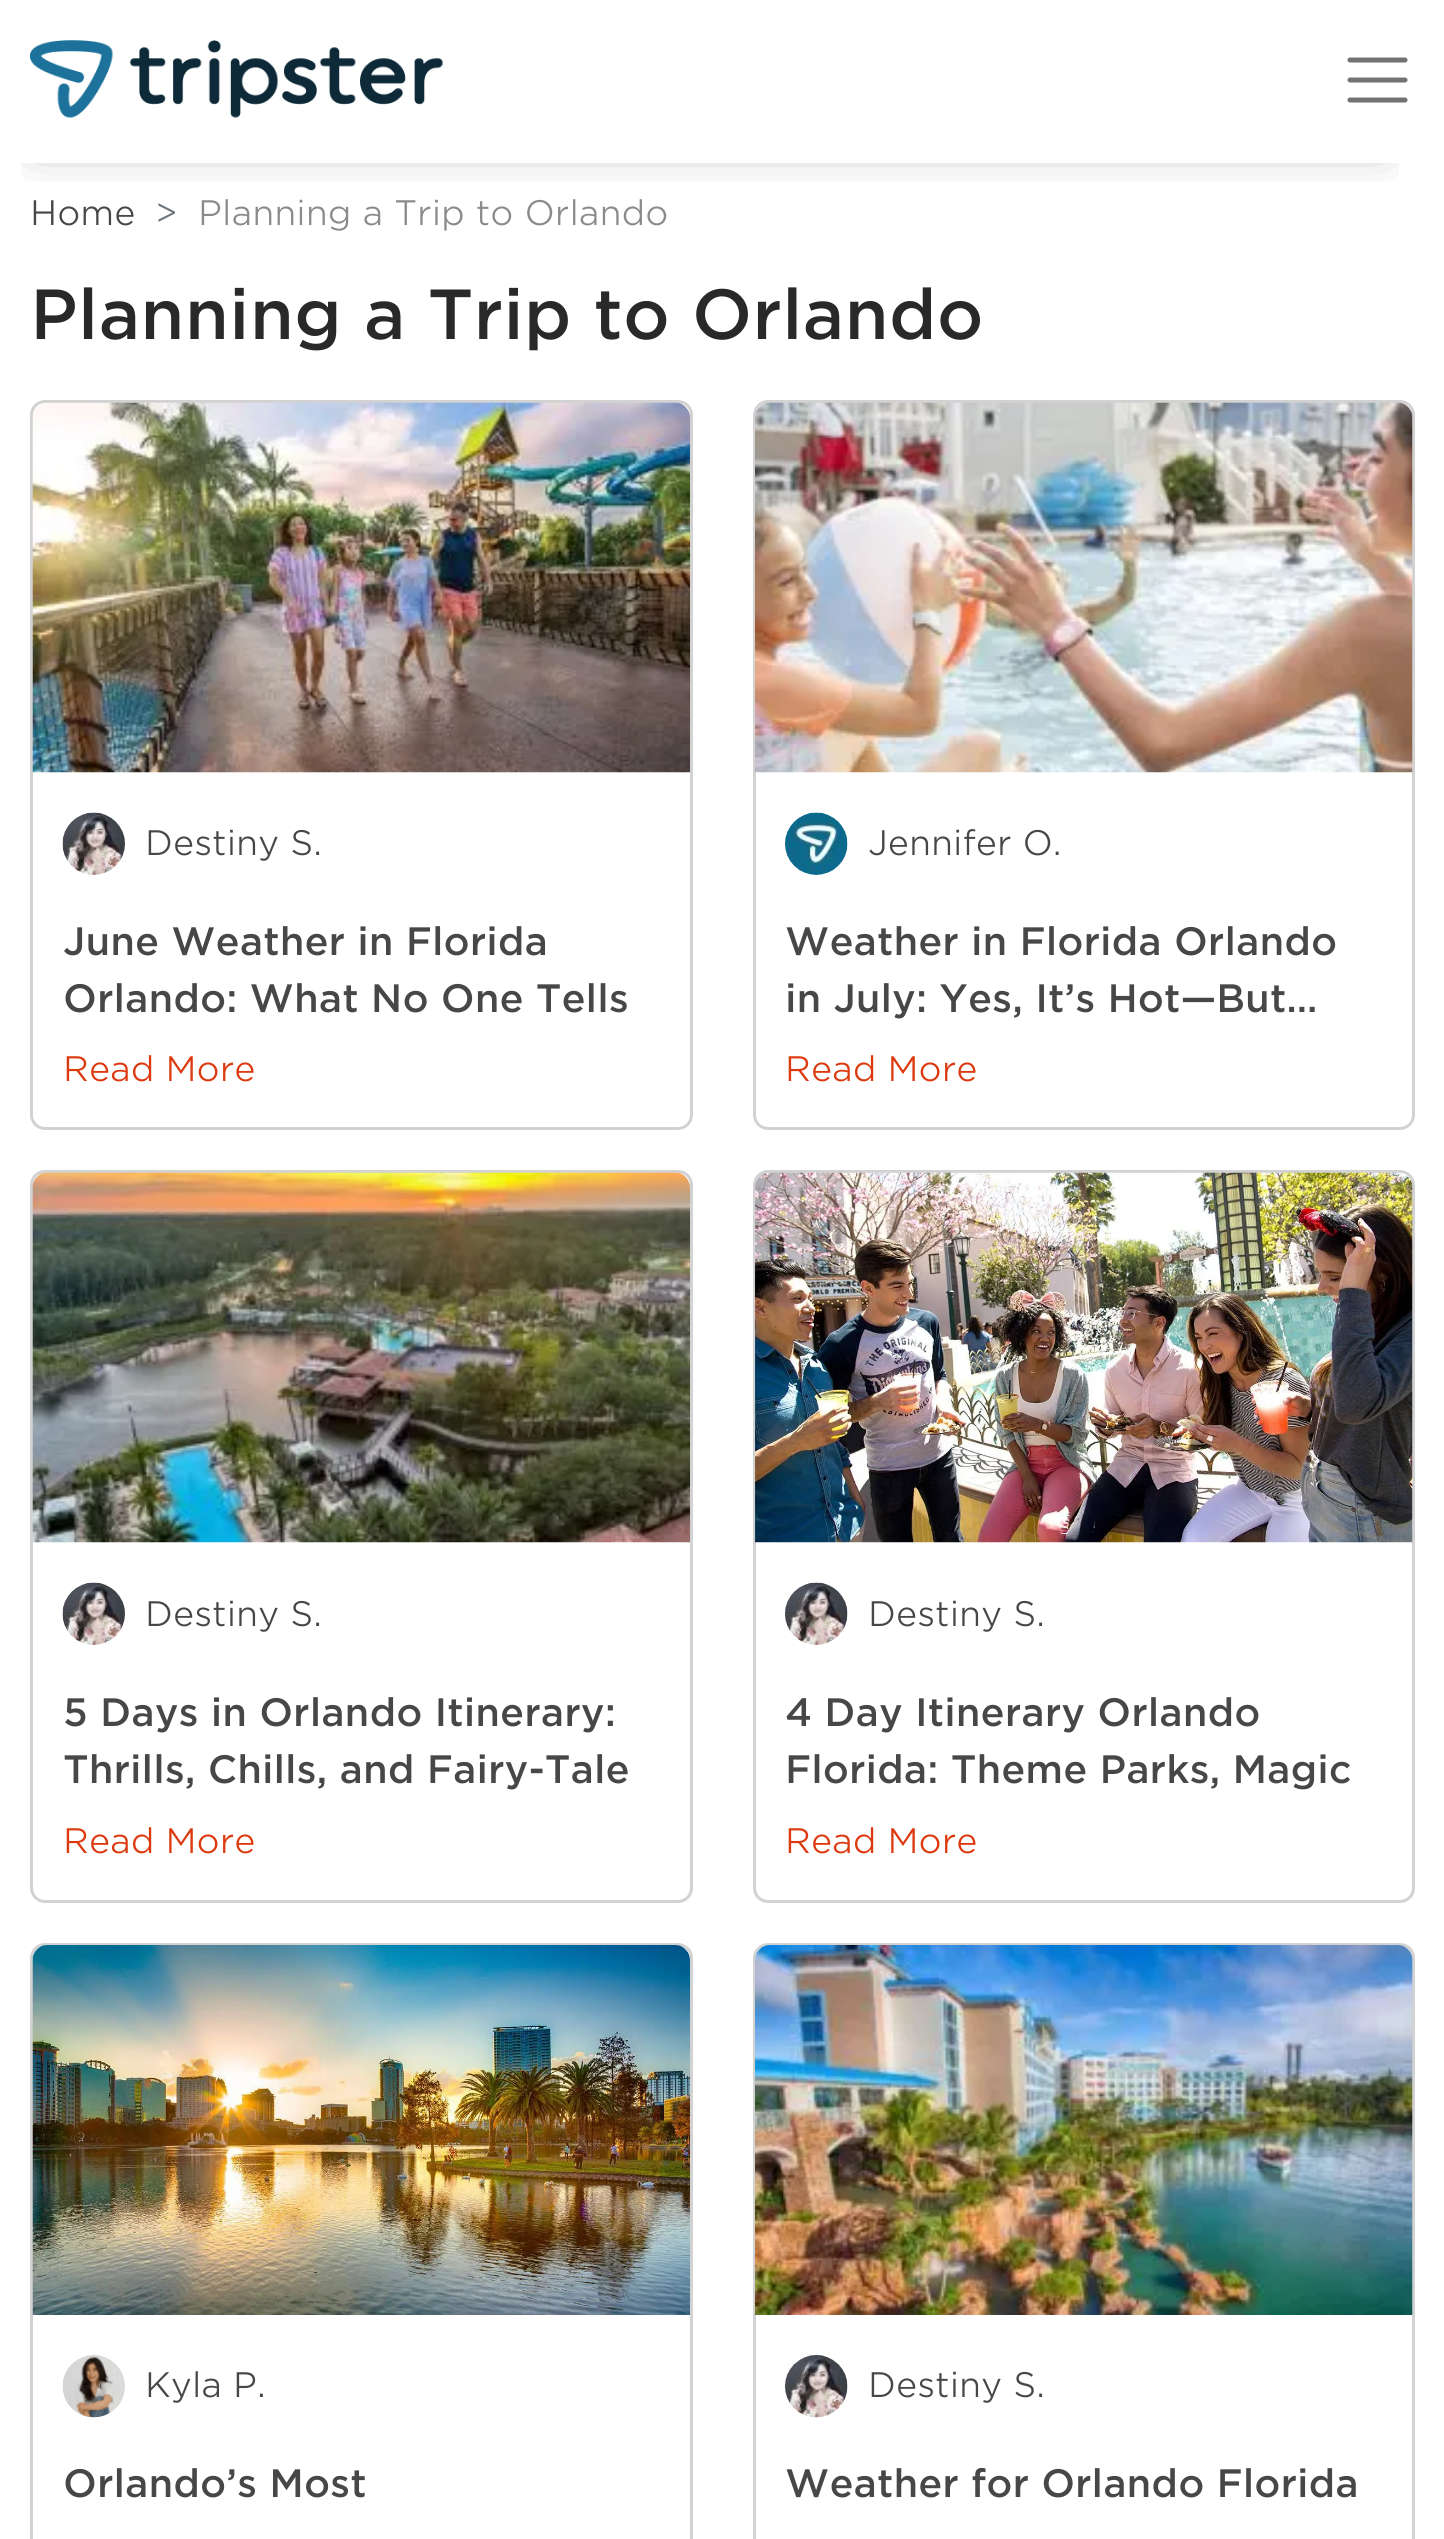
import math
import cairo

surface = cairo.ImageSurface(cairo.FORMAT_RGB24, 1444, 2539)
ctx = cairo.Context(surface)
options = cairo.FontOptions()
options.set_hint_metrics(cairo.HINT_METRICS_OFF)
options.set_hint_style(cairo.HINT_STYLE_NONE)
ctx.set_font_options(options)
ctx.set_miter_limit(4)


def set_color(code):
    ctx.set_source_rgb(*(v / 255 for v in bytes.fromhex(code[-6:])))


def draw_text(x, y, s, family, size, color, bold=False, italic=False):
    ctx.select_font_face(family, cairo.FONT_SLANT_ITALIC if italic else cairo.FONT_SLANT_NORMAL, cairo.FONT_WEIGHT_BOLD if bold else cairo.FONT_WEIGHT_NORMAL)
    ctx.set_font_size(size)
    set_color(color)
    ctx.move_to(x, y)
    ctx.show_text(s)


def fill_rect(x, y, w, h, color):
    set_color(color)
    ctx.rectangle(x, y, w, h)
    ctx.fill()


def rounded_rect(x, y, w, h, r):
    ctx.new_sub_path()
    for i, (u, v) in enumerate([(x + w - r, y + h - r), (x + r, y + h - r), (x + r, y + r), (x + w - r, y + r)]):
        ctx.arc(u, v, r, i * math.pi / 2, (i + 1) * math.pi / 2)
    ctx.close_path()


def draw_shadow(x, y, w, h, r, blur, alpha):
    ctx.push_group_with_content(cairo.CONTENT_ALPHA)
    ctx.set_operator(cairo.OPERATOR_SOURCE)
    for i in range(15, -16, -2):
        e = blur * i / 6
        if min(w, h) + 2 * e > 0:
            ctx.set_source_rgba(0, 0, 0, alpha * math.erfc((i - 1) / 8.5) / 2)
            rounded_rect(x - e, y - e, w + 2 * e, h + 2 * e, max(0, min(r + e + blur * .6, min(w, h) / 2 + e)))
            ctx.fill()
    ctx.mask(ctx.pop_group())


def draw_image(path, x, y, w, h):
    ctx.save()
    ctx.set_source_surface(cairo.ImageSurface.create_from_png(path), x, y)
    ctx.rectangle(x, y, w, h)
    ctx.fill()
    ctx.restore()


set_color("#ffffff")
ctx.paint()
ctx.save()
ctx.rectangle(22, 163, 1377, 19)
ctx.clip()
set_color("#000000")
draw_shadow(38, 75, 1345, 63, 0, 25, 0.5)
ctx.restore()
fill_rect(21, 162, 1379, 1, "#ffffff")
draw_image("assets/img1.png", 30, 40, 413, 78)
ctx.new_path()
ctx.move_to(1350, 60)
ctx.line_to(1405, 60)
ctx.move_to(1350, 80)
ctx.line_to(1405, 80)
ctx.move_to(1350, 100)
ctx.line_to(1405, 100)
set_color("#737373")
ctx.set_line_width(5)
ctx.set_line_cap(cairo.LINE_CAP_ROUND)
ctx.stroke()
draw_text(30, 225, "Home", "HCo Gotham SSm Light", 34, "#474747")
draw_text(155, 225, ">", "HCo Gotham SSm Light", 34, "#6c757d")
draw_text(198, 225, "Planning a Trip to Orlando", "HCo Gotham SSm Light", 34, "#8a8a8a")
draw_text(30, 339, "Planning a Trip to Orlando", "HCo Gotham SSm Medium", 68, "#292929")
rounded_rect(31.5, 401.5, 660, 727, 13.5)
set_color("#d2d2d2")
ctx.set_line_width(3)
ctx.set_line_cap(cairo.LINE_CAP_BUTT)
ctx.stroke()
draw_image("assets/img2.png", 32, 402, 658, 371)
draw_image("assets/img3.png", 62, 812, 63, 63)
draw_text(145, 855, "Destiny S.", "HCo Gotham SSm Light", 34, "#474747")
draw_text(63, 955, "June Weather in Florida", "HCo Gotham SSm Medium", 38, "#474747")
draw_text(63, 1012, "Orlando: What No One Tells", "HCo Gotham SSm Medium", 38, "#474747")
draw_text(63, 1081, "Read More", "HCo Gotham SSm Light", 34, "#dd390f")
rounded_rect(754.5, 401.5, 659, 727, 13.5)
set_color("#d2d2d2")
ctx.stroke()
draw_image("assets/img4.png", 755, 402, 658, 371)
draw_image("assets/img5.png", 785, 812, 63, 63)
draw_text(868, 855, "Jennifer O.", "HCo Gotham SSm Light", 34, "#474747")
draw_text(785, 955, "Weather in Florida Orlando", "HCo Gotham SSm Medium", 38, "#474747")
draw_text(785, 1012, "in July: Yes, It’s Hot—But…", "HCo Gotham SSm Medium", 38, "#474747")
draw_text(785, 1081, "Read More", "HCo Gotham SSm Light", 34, "#dd390f")
rounded_rect(31.5, 1171.5, 660, 730, 13.5)
set_color("#d2d2d2")
ctx.stroke()
draw_image("assets/img6.png", 32, 1172, 658, 371)
draw_image("assets/img3.png", 62, 1582, 63, 63)
draw_text(145, 1626, "Destiny S.", "HCo Gotham SSm Light", 34, "#474747")
draw_text(63, 1726, "5 Days in Orlando Itinerary:", "HCo Gotham SSm Medium", 38, "#474747")
draw_text(63, 1783, "Thrills, Chills, and Fairy-Tale", "HCo Gotham SSm Medium", 38, "#474747")
draw_text(63, 1853, "Read More", "HCo Gotham SSm Light", 34, "#dd390f")
rounded_rect(754.5, 1171.5, 659, 730, 13.5)
set_color("#d2d2d2")
ctx.stroke()
draw_image("assets/img7.png", 755, 1172, 658, 371)
draw_image("assets/img8.png", 785, 1582, 63, 63)
draw_text(868, 1626, "Destiny S.", "HCo Gotham SSm Light", 34, "#474747")
draw_text(785, 1726, "4 Day Itinerary Orlando", "HCo Gotham SSm Medium", 38, "#474747")
draw_text(785, 1783, "Florida: Theme Parks, Magic", "HCo Gotham SSm Medium", 38, "#474747")
draw_text(785, 1853, "Read More", "HCo Gotham SSm Light", 34, "#dd390f")
rounded_rect(31.5, 1944.5, 660, 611, 13.5)
set_color("#d2d2d2")
ctx.stroke()
draw_image("assets/img9.png", 32, 1945, 658, 370)
draw_image("assets/img10.png", 62, 2355, 63, 63)
draw_text(145, 2397, "Kyla P.", "HCo Gotham SSm Light", 34, "#474747")
draw_text(63, 2497, "Orlando’s Most", "HCo Gotham SSm Medium", 38, "#474747")
rounded_rect(754.5, 1944.5, 659, 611, 13.5)
set_color("#d2d2d2")
ctx.stroke()
draw_image("assets/img11.png", 755, 1945, 658, 370)
draw_image("assets/img12.png", 785, 2355, 63, 63)
draw_text(868, 2397, "Destiny S.", "HCo Gotham SSm Light", 34, "#474747")
draw_text(785, 2497, "Weather for Orlando Florida", "HCo Gotham SSm Medium", 38, "#474747")
surface.write_to_png("output.png")
